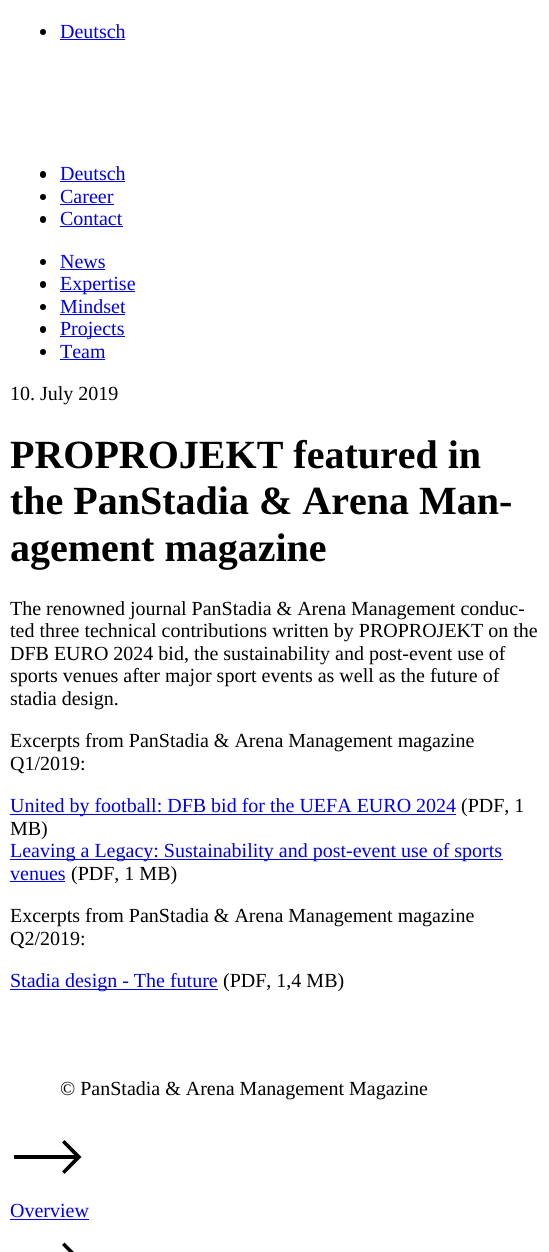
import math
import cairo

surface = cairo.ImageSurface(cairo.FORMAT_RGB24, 549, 1252)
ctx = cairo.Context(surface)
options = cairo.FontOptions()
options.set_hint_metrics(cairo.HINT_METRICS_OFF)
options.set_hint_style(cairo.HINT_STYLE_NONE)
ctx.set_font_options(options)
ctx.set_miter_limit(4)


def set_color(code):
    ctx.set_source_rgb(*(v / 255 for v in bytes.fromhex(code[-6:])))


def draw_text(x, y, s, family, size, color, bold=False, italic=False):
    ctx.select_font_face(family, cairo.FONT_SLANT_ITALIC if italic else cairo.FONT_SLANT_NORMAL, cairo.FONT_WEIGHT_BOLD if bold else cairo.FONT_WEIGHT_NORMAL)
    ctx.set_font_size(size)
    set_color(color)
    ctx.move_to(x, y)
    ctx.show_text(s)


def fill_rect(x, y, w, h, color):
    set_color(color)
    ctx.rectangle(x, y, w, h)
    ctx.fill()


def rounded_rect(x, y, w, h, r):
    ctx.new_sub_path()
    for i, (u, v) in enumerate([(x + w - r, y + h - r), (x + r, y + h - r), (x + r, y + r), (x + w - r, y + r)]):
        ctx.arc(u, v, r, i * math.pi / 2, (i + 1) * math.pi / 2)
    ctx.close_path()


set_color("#ffffff")
ctx.paint()
set_color("#000000")
ctx.arc(43, 32, 3, 0, 2 * math.pi)
ctx.fill()
draw_text(60, 38, "Deutsch", "Liberation Serif", 20, "#0000ee")
fill_rect(60, 39, 65, 1, "#0000ee")
set_color("#000000")
rounded_rect(40, 171, 6, 7, 3)
ctx.fill()
draw_text(60, 180, "Deutsch", "Liberation Serif", 20, "#0000ee")
fill_rect(60, 181, 65, 1, "#0000ee")
set_color("#000000")
ctx.new_path()
ctx.arc(43, 197, 3, 0, 2 * math.pi)
ctx.fill()
draw_text(60, 203, "Career", "Liberation Serif", 20, "#0000ee")
fill_rect(60, 204, 54, 1, "#0000ee")
set_color("#000000")
rounded_rect(40, 216, 6, 7, 3)
ctx.fill()
draw_text(60, 225, "Contact", "Liberation Serif", 20, "#0000ee")
fill_rect(60, 226, 63, 1, "#0000ee")
set_color("#000000")
ctx.new_path()
ctx.arc(43, 262, 3, 0, 2 * math.pi)
ctx.fill()
draw_text(60, 268, "News", "Liberation Serif", 20, "#0000ee")
fill_rect(60, 269, 45, 1, "#0000ee")
set_color("#000000")
rounded_rect(40, 281, 6, 7, 3)
ctx.fill()
fill_rect(60, 291, 75, 1, "#0000ee")
draw_text(60, 290, "Expertise", "Liberation Serif", 20, "#0000ee")
set_color("#000000")
ctx.new_path()
ctx.arc(43, 307, 3, 0, 2 * math.pi)
ctx.fill()
draw_text(60, 313, "Mindset", "Liberation Serif", 20, "#0000ee")
fill_rect(60, 314, 65, 1, "#0000ee")
set_color("#000000")
rounded_rect(40, 326, 6, 7, 3)
ctx.fill()
fill_rect(60, 336, 65, 1, "#0000ee")
draw_text(60, 335, "Projects", "Liberation Serif", 20, "#0000ee")
set_color("#000000")
ctx.new_path()
ctx.arc(43, 352, 3, 0, 2 * math.pi)
ctx.fill()
draw_text(60, 358, "Team", "Liberation Serif", 20, "#0000ee")
fill_rect(60, 359, 45, 1, "#0000ee")
draw_text(10, 400, "10. July 2019", "Liberation Serif", 20, "#000000")
draw_text(10, 468, "PROPROJEKT featured in", "Liberation Serif", 40, "#000000", bold=True)
draw_text(10, 514, "the PanStadia & Arena Man-", "Liberation Serif", 40, "#000000", bold=True)
draw_text(10, 561, "agement magazine", "Liberation Serif", 40, "#000000", bold=True)
draw_text(10, 615, "The renowned journal PanStadia & Arena Management conduc-", "Liberation Serif", 20, "#000000")
draw_text(10, 637, "ted three technical contributions written by PROPROJEKT on the", "Liberation Serif", 20, "#000000")
draw_text(10, 660, "DFB EURO 2024 bid, the sustainability and post-event use of", "Liberation Serif", 20, "#000000")
draw_text(10, 682, "sports venues after major sport events as well as the future of", "Liberation Serif", 20, "#000000")
draw_text(10, 705, "stadia design.", "Liberation Serif", 20, "#000000")
draw_text(10, 747, "Excerpts from PanStadia & Arena Management magazine", "Liberation Serif", 20, "#000000")
draw_text(10, 770, "Q1/2019:", "Liberation Serif", 20, "#000000")
fill_rect(10, 814, 446, 1, "#0000ee")
draw_text(10, 812, "United by football: DFB bid for the UEFA EURO 2024", "Liberation Serif", 20, "#0000ee")
draw_text(461, 812, "(PDF, 1", "Liberation Serif", 20, "#000000")
draw_text(10, 835, "MB)", "Liberation Serif", 20, "#000000")
fill_rect(10, 859, 493, 1, "#0000ee")
draw_text(10, 857, "Leaving a Legacy: Sustainability and post-event use of sports", "Liberation Serif", 20, "#0000ee")
draw_text(10, 880, "venues", "Liberation Serif", 20, "#0000ee")
fill_rect(10, 881, 55, 1, "#0000ee")
draw_text(71, 880, "(PDF, 1 MB)", "Liberation Serif", 20, "#000000")
draw_text(10, 922, "Excerpts from PanStadia & Arena Management magazine", "Liberation Serif", 20, "#000000")
draw_text(10, 945, "Q2/2019:", "Liberation Serif", 20, "#000000")
fill_rect(10, 989, 208, 1, "#0000ee")
draw_text(10, 987, "Stadia design - The future", "Liberation Serif", 20, "#0000ee")
draw_text(223, 987, "(PDF, 1,4 MB)", "Liberation Serif", 20, "#000000")
draw_text(60, 1095, "© PanStadia & Arena Management Magazine", "Liberation Serif", 20, "#000000")
fill_rect(14, 1155, 64, 4, "#000000")
ctx.new_path()
ctx.move_to(81.5, 1157)
ctx.line_to(64.5, 1174)
ctx.line_to(62, 1171.5)
ctx.line_to(76, 1157)
ctx.line_to(62, 1142.5)
ctx.line_to(64.5, 1140)
ctx.close_path()
ctx.fill()
draw_text(10, 1217, "Overview", "Liberation Serif", 20, "#0000ee")
fill_rect(10, 1219, 79, 1, "#0000ee")
set_color("#000000")
ctx.new_path()
ctx.move_to(81.5, 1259.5)
ctx.line_to(64.5, 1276.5)
ctx.line_to(62, 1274)
ctx.line_to(76, 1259.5)
ctx.line_to(62, 1245)
ctx.line_to(64.5, 1242.5)
ctx.close_path()
ctx.fill()
surface.write_to_png("output.png")
